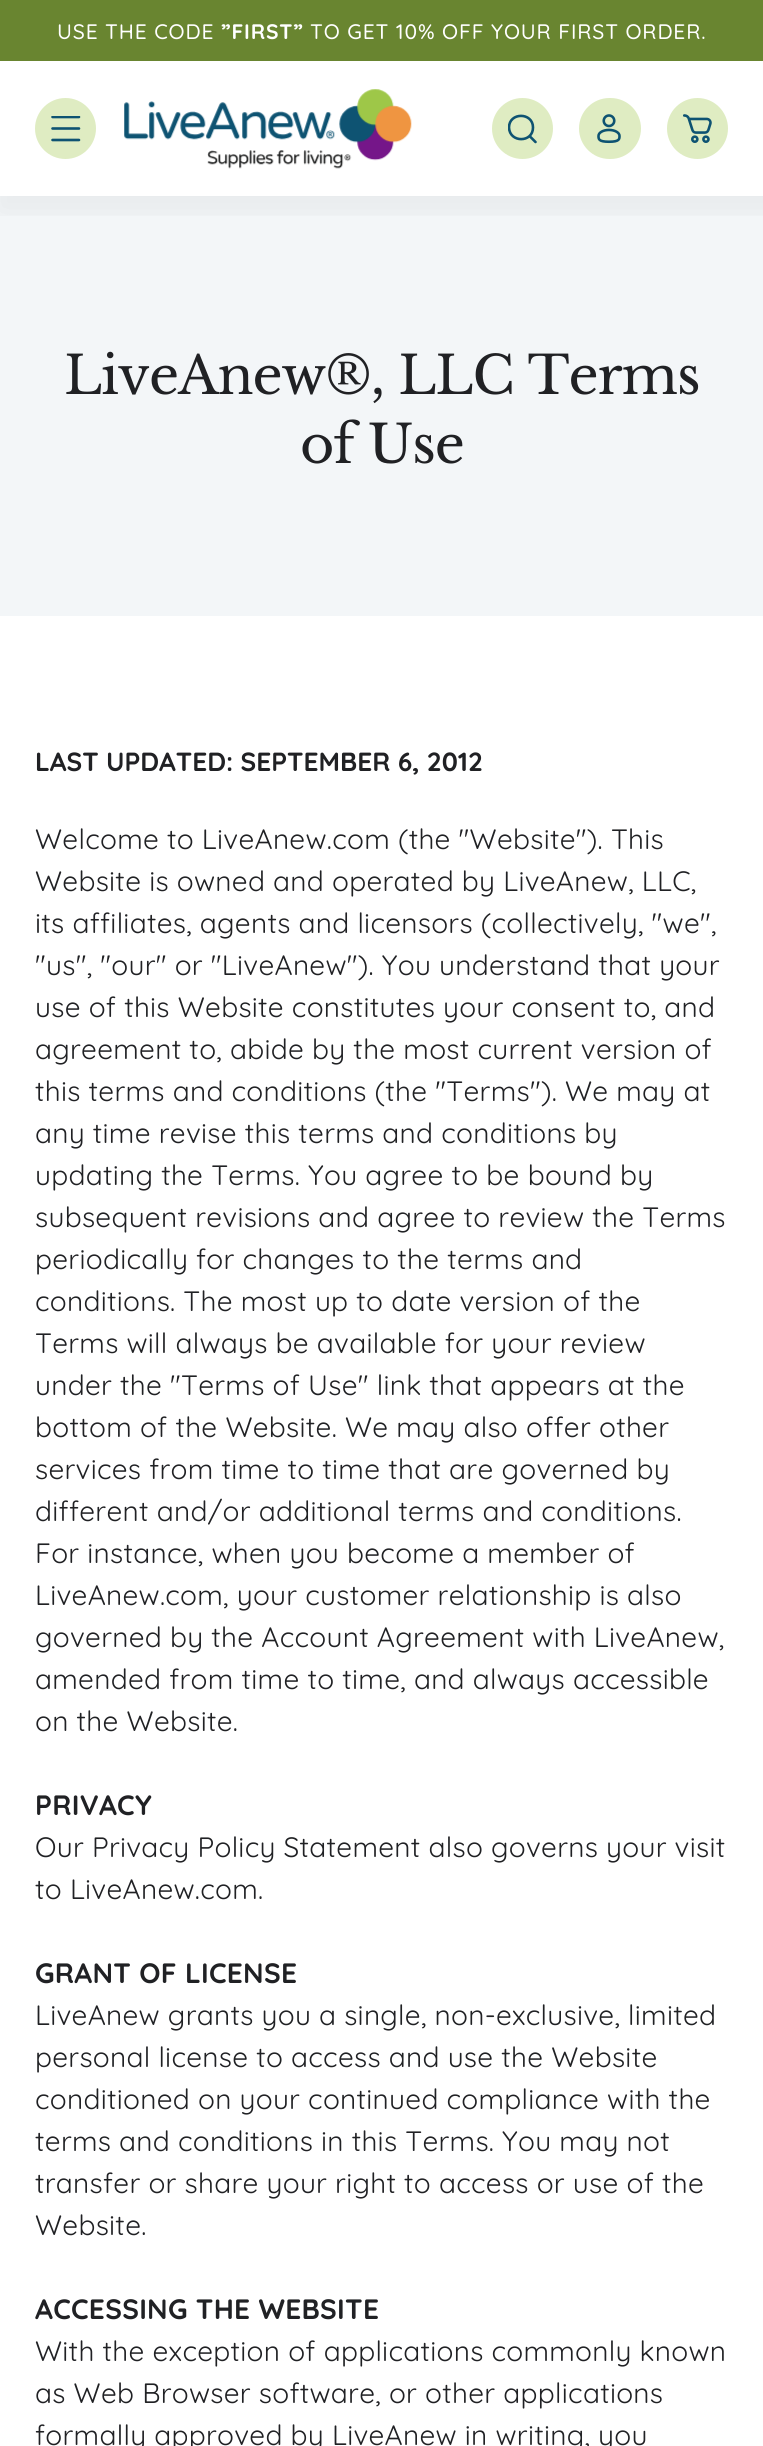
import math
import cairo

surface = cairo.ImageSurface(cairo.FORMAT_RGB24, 763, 2446)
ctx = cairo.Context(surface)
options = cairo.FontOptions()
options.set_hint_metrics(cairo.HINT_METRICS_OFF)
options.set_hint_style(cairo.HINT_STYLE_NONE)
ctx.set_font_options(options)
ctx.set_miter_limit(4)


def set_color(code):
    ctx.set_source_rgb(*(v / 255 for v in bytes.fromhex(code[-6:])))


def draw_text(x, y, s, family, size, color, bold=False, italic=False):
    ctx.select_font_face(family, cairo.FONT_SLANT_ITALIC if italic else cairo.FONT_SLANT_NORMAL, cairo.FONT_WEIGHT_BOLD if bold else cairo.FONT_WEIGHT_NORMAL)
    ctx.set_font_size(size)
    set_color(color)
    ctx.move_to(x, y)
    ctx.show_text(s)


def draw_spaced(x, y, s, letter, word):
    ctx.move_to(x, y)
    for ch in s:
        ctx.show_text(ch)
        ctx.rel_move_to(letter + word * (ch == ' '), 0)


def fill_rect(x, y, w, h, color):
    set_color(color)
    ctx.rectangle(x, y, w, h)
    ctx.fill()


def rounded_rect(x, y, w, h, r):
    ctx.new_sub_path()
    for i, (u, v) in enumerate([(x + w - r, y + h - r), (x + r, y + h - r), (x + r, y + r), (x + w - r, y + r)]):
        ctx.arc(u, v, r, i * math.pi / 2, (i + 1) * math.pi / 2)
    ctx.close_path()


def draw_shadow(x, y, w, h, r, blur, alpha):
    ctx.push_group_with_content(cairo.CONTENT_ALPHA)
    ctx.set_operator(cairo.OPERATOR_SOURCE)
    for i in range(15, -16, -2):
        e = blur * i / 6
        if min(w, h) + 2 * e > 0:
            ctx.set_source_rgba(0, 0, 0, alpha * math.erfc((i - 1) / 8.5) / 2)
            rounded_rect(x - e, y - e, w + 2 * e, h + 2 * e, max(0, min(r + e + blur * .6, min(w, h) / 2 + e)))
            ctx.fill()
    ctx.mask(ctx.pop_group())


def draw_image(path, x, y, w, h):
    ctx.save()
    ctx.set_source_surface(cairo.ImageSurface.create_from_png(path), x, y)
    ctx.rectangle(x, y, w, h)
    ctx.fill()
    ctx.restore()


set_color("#ffffff")
ctx.paint()
fill_rect(0, 196, 763, 420, "#f3f6f8")
ctx.save()
ctx.rectangle(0, 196, 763, 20)
ctx.clip()
set_color("#000000")
draw_shadow(-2, 60, 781, 152, 0, 17.5, 0.05)
ctx.restore()
set_color("#dfecc2")
ctx.arc(65.5, 128.5, 30.5, 0, 2 * math.pi)
ctx.fill()
ctx.save()
ctx.rectangle(51, 116, 30, 26)
ctx.clip()
ctx.new_path()
ctx.move_to(52.5, 117)
ctx.line_to(79, 117)
set_color("#0e5372")
ctx.set_line_width(2.6)
ctx.set_line_cap(cairo.LINE_CAP_ROUND)
ctx.set_line_join(cairo.LINE_JOIN_ROUND)
ctx.stroke()
ctx.restore()
ctx.new_path()
ctx.move_to(52.5, 128.5)
ctx.line_to(79, 128.5)
ctx.move_to(52.5, 140)
ctx.line_to(79, 140)
set_color("#0e5372")
ctx.set_line_width(2.6)
ctx.set_line_cap(cairo.LINE_CAP_ROUND)
ctx.set_line_join(cairo.LINE_JOIN_ROUND)
ctx.stroke()
draw_image("assets/img1.png", 124, 89, 288, 80)
set_color("#dfecc2")
ctx.arc(522.5, 128.5, 30.5, 0, 2 * math.pi)
ctx.fill()
ctx.save()
ctx.rectangle(508, 114, 29, 30)
ctx.clip()
ctx.new_path()
ctx.move_to(529.5, 136)
ctx.line_to(535.5, 142)
ctx.move_to(533, 127.5)
ctx.curve_to(533, 112, 509, 112, 509, 127.5)
ctx.curve_to(509.5, 143, 533, 143, 533, 127.5)
ctx.close_path()
set_color("#0e5372")
ctx.stroke()
ctx.restore()
rounded_rect(579, 98, 62, 61, 30.5)
ctx.fill()
draw_image("assets/img2.png", 597, 114, 24, 30)
ctx.arc(697.5, 128.5, 30.5, 0, 2 * math.pi)
ctx.fill()
draw_image("assets/img3.png", 683, 114, 29, 29)
fill_rect(0, 0, 763, 61, "#698530")
ctx.select_font_face("Quicksand Medium")
ctx.set_font_size(21)
set_color("#ffffff")
draw_spaced(57, 39, "USE THE CODE", 0.85, 0)
ctx.select_font_face("Quicksand", cairo.FONT_SLANT_NORMAL, cairo.FONT_WEIGHT_BOLD)
draw_spaced(221, 39, "”FIRST”", 0.85, 0)
ctx.select_font_face("Quicksand Medium")
draw_spaced(310, 39, "TO GET 10% OFF YOUR FIRST ORDER.", 0.85, 0)
ctx.select_font_face("Libre Baskerville")
ctx.set_font_size(52.5)
set_color("#202124")
draw_spaced(64, 394, "LiveAnew®, LLC Terms", -1.05, 0)
draw_spaced(300, 463, "of Use", -1.05, 0)
draw_text(35, 771, "LAST UPDATED: SEPTEMBER 6, 2012", "Quicksand", 26.25, "#202124", bold=True)
ctx.select_font_face("Quicksand")
ctx.set_font_size(28)
draw_spaced(35, 849, "Welcome to LiveAnew.com (the \"Website\"). This", 0.28, 0)
draw_spaced(35, 891, "Website is owned and operated by LiveAnew, LLC,", 0.28, 0)
draw_spaced(35, 933, "its affiliates, agents and licensors (collectively, \"we\",", 0.28, 0)
draw_spaced(35, 975, "\"us\", \"our\" or \"LiveAnew\"). You understand that your", 0.28, 0)
draw_spaced(35, 1017, "use of this Website constitutes your consent to, and", 0.28, 0)
draw_spaced(35, 1059, "agreement to, abide by the most current version of", 0.28, 0)
draw_spaced(35, 1101, "this terms and conditions (the \"Terms\"). We may at", 0.28, 0)
draw_spaced(35, 1143, "any time revise this terms and conditions by", 0.28, 0)
draw_spaced(35, 1185, "updating the Terms. You agree to be bound by", 0.28, 0)
draw_spaced(35, 1227, "subsequent revisions and agree to review the Terms", 0.28, 0)
draw_spaced(35, 1269, "periodically for changes to the terms and", 0.28, 0)
draw_spaced(35, 1311, "conditions. The most up to date version of the", 0.28, 0)
draw_spaced(35, 1353, "Terms will always be available for your review", 0.28, 0)
draw_spaced(35, 1395, "under the \"Terms of Use\" link that appears at the", 0.28, 0)
draw_spaced(35, 1437, "bottom of the Website. We may also offer other", 0.28, 0)
draw_spaced(35, 1479, "services from time to time that are governed by", 0.28, 0)
draw_spaced(35, 1521, "different and/or additional terms and conditions.", 0.28, 0)
draw_spaced(35, 1563, "For instance, when you become a member of", 0.28, 0)
draw_spaced(35, 1605, "LiveAnew.com, your customer relationship is also", 0.28, 0)
draw_spaced(35, 1647, "governed by the Account Agreement with LiveAnew,", 0.28, 0)
draw_spaced(35, 1689, "amended from time to time, and always accessible", 0.28, 0)
draw_spaced(35, 1731, "on the Website.", 0.28, 0)
ctx.select_font_face("Quicksand", cairo.FONT_SLANT_NORMAL, cairo.FONT_WEIGHT_BOLD)
draw_spaced(35, 1815, "PRIVACY", 0.28, 0)
ctx.select_font_face("Quicksand")
draw_spaced(35, 1857, "Our Privacy Policy Statement also governs your visit", 0.28, 0)
draw_spaced(35, 1899, "to LiveAnew.com.", 0.28, 0)
ctx.select_font_face("Quicksand", cairo.FONT_SLANT_NORMAL, cairo.FONT_WEIGHT_BOLD)
draw_spaced(35, 1983, "GRANT OF LICENSE", 0.28, 0)
ctx.select_font_face("Quicksand")
draw_spaced(35, 2025, "LiveAnew grants you a single, non-exclusive, limited", 0.28, 0)
draw_spaced(35, 2067, "personal license to access and use the Website", 0.28, 0)
draw_spaced(35, 2109, "conditioned on your continued compliance with the", 0.28, 0)
draw_spaced(35, 2151, "terms and conditions in this Terms. You may not", 0.28, 0)
draw_spaced(35, 2193, "transfer or share your right to access or use of the", 0.28, 0)
draw_spaced(35, 2235, "Website.", 0.28, 0)
ctx.select_font_face("Quicksand", cairo.FONT_SLANT_NORMAL, cairo.FONT_WEIGHT_BOLD)
draw_spaced(35, 2319, "ACCESSING THE WEBSITE", 0.28, 0)
ctx.select_font_face("Quicksand")
draw_spaced(35, 2361, "With the exception of applications commonly known", 0.28, 0)
draw_spaced(35, 2403, "as Web Browser software, or other applications", 0.28, 0)
draw_spaced(35, 2445, "formally approved by LiveAnew in writing, you", 0.28, 0)
surface.write_to_png("output.png")
